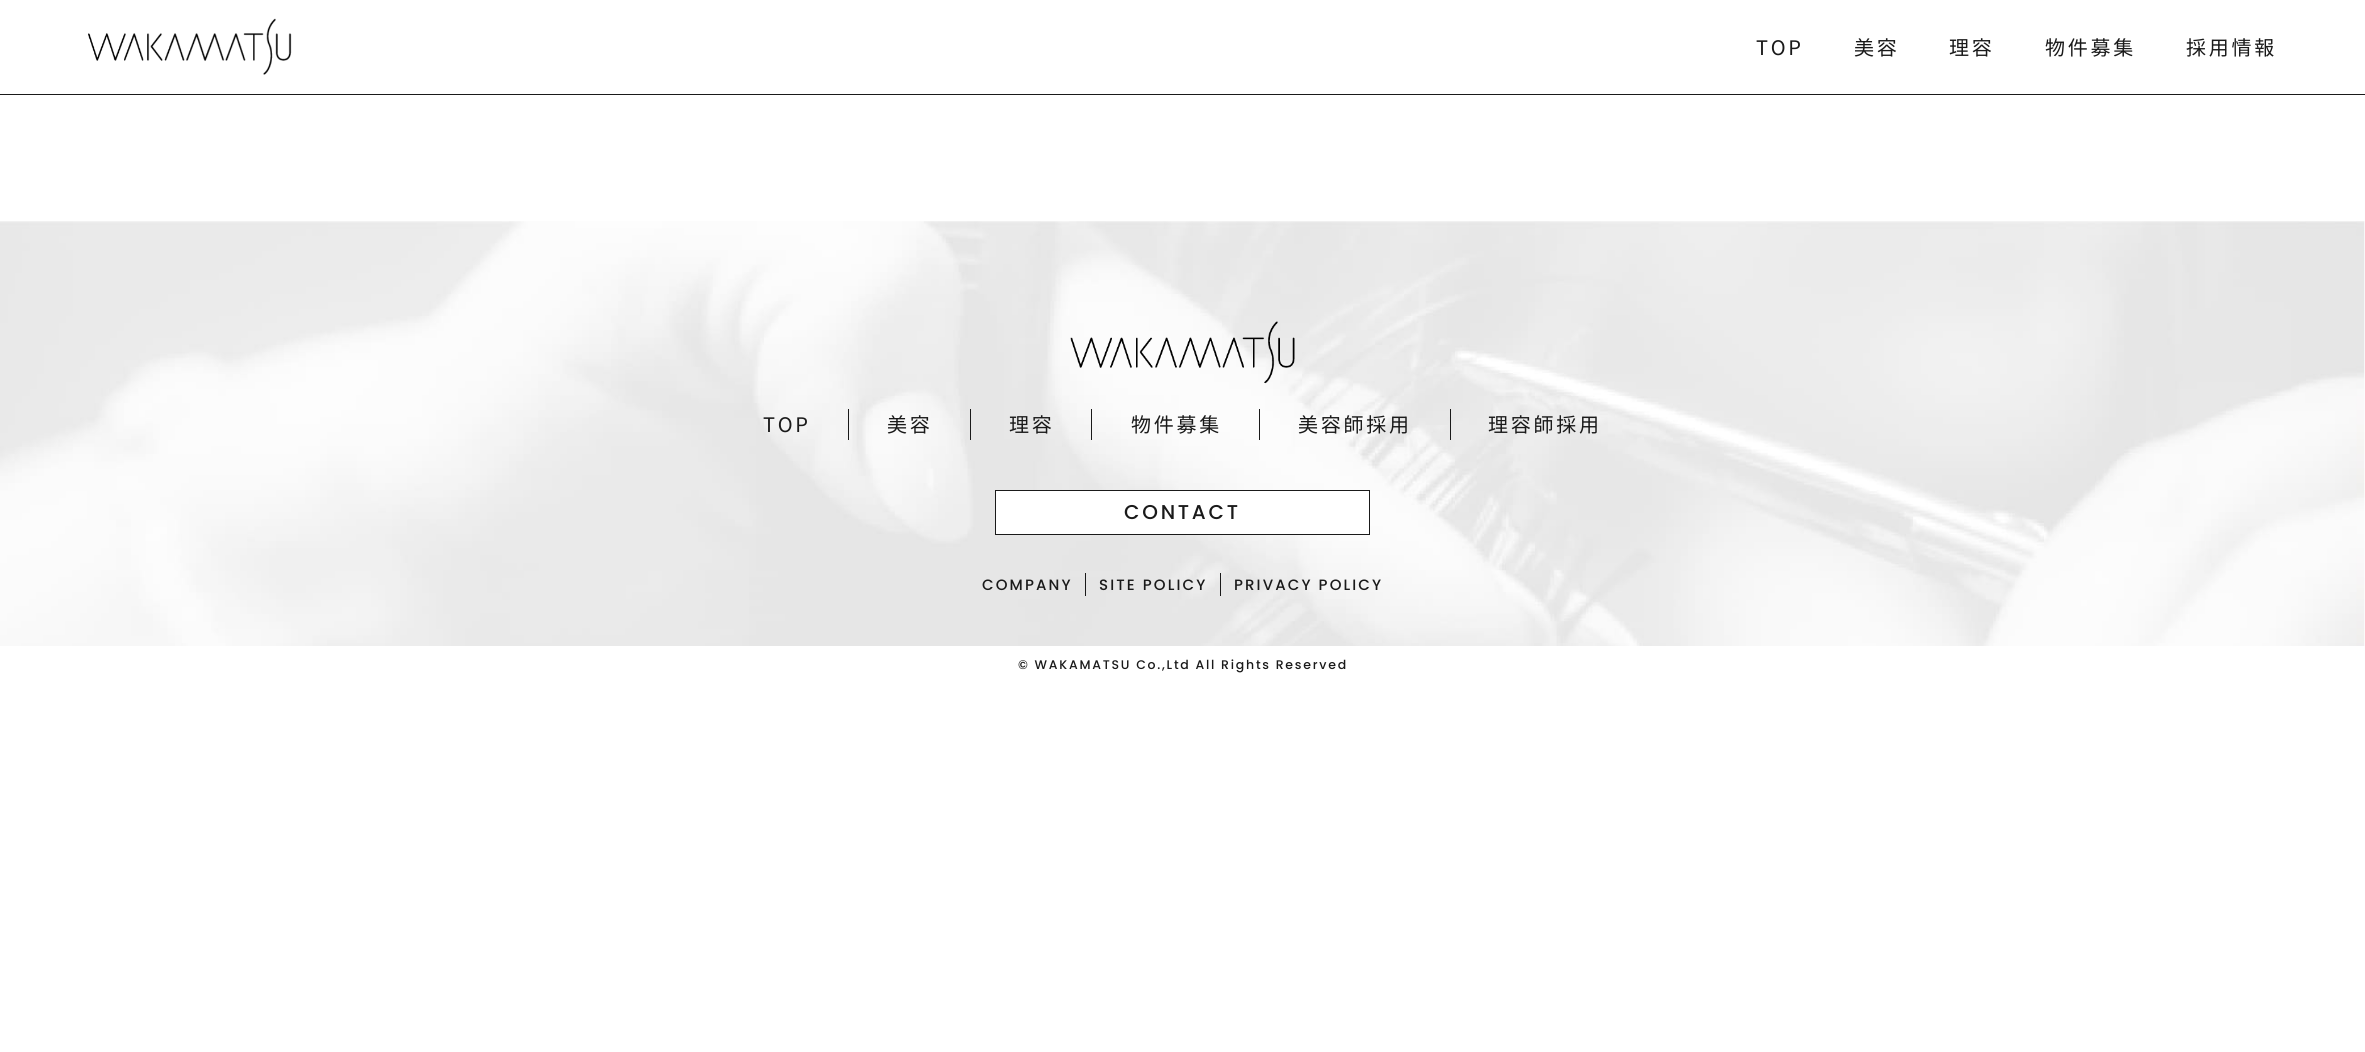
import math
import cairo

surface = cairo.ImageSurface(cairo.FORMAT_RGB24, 2365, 1052)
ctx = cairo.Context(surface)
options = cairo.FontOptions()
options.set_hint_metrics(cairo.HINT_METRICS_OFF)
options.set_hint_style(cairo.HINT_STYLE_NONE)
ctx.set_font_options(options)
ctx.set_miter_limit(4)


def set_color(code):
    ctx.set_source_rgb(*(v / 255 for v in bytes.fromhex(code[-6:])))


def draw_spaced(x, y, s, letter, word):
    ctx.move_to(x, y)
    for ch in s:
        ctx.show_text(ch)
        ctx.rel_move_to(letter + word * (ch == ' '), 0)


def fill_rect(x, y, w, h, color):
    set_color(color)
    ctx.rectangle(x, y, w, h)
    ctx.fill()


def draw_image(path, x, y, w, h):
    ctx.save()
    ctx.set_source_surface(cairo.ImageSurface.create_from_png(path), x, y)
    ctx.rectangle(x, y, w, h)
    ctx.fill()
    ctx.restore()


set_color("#ffffff")
ctx.paint()
fill_rect(0, 94, 2365, 1, "#1a1a1a")
draw_image("assets/img1.png", 88, 18, 204, 57)
ctx.select_font_face("Noto Sans JP")
ctx.set_font_size(20)
draw_spaced(1756, 55, "TOP", 2.75, 0)
draw_spaced(1854, 55, "美容", 2.75, 0)
draw_spaced(1949, 55, "理容", 2.75, 0)
draw_spaced(2045, 55, "物件募集", 2.75, 0)
draw_spaced(2186, 55, "採用情報", 2.75, 0)
draw_image("assets/img2.png", 0, 221, 2365, 425)
draw_image("assets/img3.png", 1070, 321, 225, 63)
fill_rect(848, 409, 1, 31, "#1a1a1a")
draw_spaced(763, 432, "TOP", 2.75, 0)
fill_rect(970, 409, 1, 31, "#1a1a1a")
draw_spaced(887, 432, "美容", 2.75, 0)
fill_rect(1091, 409, 1, 31, "#1a1a1a")
draw_spaced(1009, 432, "理容", 2.75, 0)
fill_rect(1259, 409, 1, 31, "#1a1a1a")
draw_spaced(1131, 432, "物件募集", 2.75, 0)
fill_rect(1450, 409, 1, 31, "#1a1a1a")
draw_spaced(1298, 432, "美容師採用", 2.75, 0)
draw_spaced(1488, 432, "理容師採用", 2.75, 0)
set_color("#ffffff")
ctx.rectangle(995.5, 490.5, 374, 44)
ctx.fill_preserve()
set_color("#1a1a1a")
ctx.set_line_width(1)
ctx.stroke()
ctx.select_font_face("Poppins Medium")
draw_spaced(1124, 519, "CONTACT", 2.75, 0)
fill_rect(1085, 573, 1, 23, "#1a1a1a")
ctx.set_font_size(15)
draw_spaced(982, 590, "COMPANY", 2.1, 0)
fill_rect(1220, 573, 1, 23, "#1a1a1a")
draw_spaced(1099, 590, "SITE POLICY", 2.1, 0)
draw_spaced(1234, 590, "PRIVACY POLICY", 2.1, 0)
ctx.set_font_size(12.5)
draw_spaced(1018, 669, "© WAKAMATSU Co.,Ltd All Rights Reserved", 1.75, 0)
surface.write_to_png("output.png")
